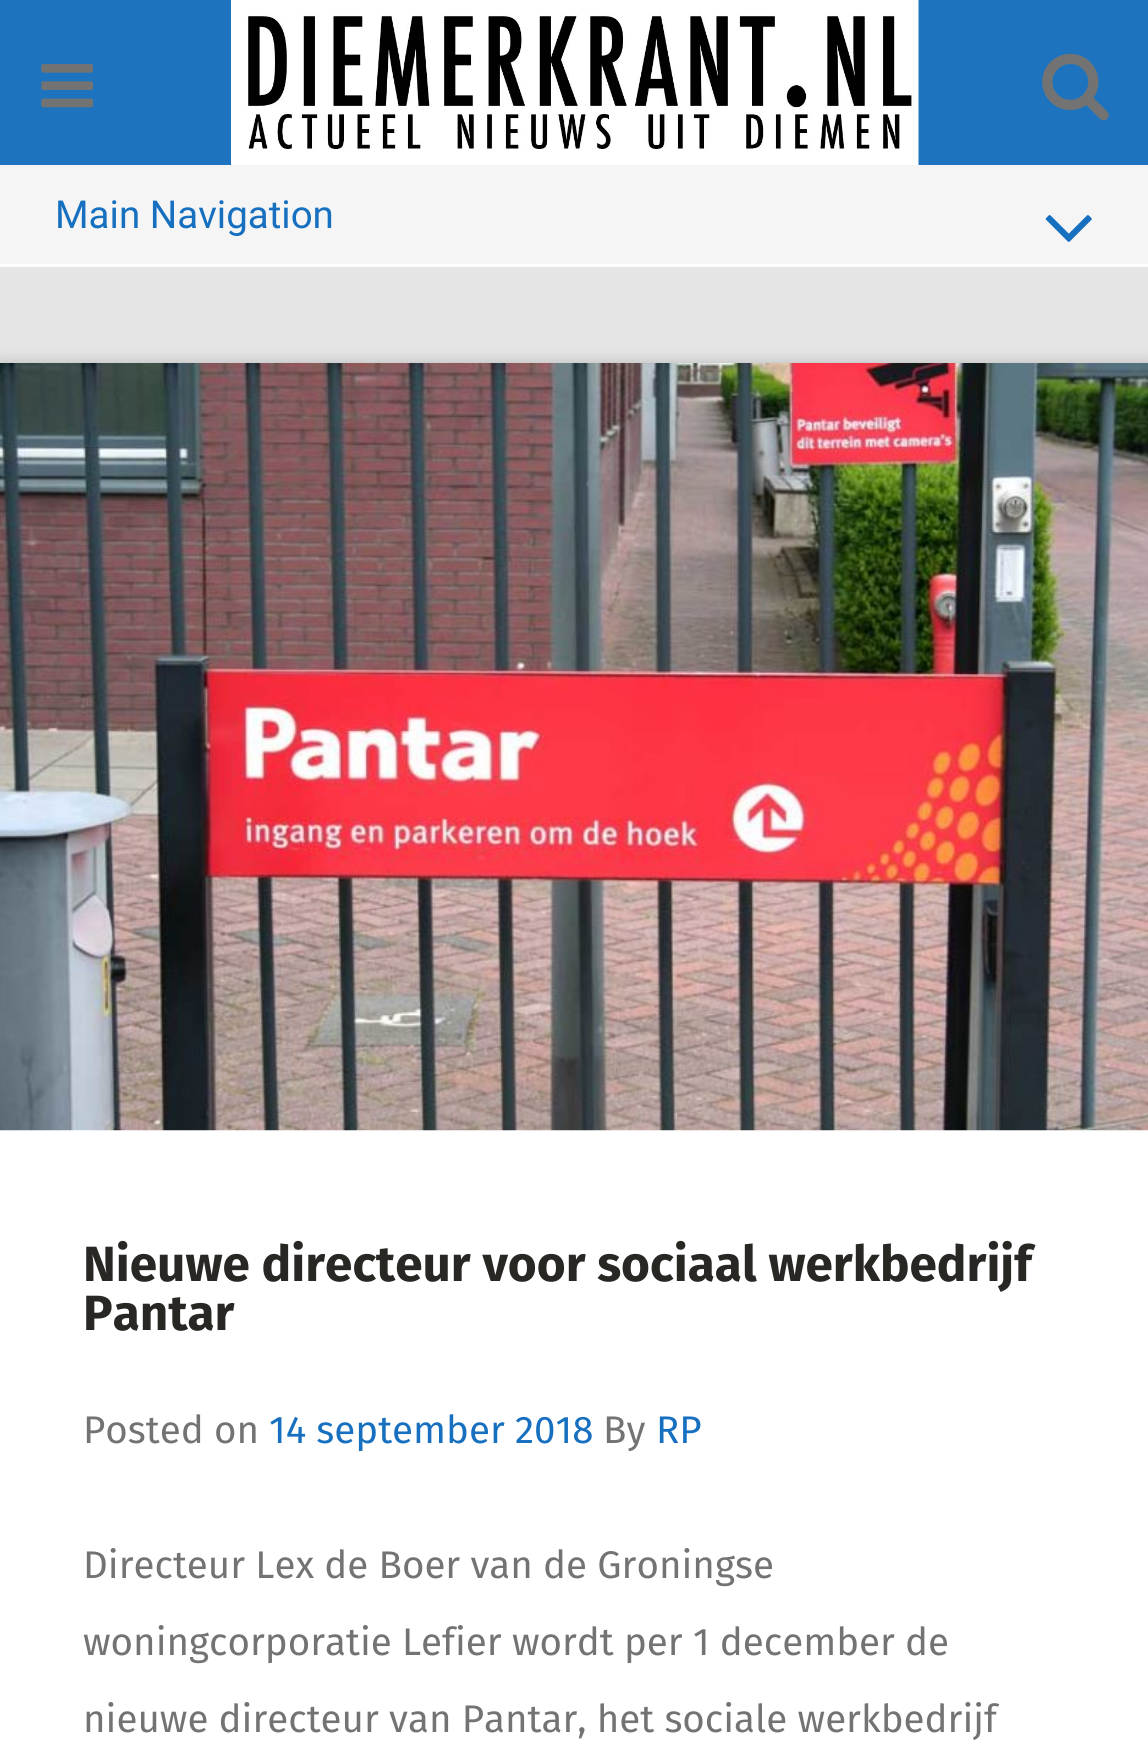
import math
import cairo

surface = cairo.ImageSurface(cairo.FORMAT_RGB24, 1148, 1756)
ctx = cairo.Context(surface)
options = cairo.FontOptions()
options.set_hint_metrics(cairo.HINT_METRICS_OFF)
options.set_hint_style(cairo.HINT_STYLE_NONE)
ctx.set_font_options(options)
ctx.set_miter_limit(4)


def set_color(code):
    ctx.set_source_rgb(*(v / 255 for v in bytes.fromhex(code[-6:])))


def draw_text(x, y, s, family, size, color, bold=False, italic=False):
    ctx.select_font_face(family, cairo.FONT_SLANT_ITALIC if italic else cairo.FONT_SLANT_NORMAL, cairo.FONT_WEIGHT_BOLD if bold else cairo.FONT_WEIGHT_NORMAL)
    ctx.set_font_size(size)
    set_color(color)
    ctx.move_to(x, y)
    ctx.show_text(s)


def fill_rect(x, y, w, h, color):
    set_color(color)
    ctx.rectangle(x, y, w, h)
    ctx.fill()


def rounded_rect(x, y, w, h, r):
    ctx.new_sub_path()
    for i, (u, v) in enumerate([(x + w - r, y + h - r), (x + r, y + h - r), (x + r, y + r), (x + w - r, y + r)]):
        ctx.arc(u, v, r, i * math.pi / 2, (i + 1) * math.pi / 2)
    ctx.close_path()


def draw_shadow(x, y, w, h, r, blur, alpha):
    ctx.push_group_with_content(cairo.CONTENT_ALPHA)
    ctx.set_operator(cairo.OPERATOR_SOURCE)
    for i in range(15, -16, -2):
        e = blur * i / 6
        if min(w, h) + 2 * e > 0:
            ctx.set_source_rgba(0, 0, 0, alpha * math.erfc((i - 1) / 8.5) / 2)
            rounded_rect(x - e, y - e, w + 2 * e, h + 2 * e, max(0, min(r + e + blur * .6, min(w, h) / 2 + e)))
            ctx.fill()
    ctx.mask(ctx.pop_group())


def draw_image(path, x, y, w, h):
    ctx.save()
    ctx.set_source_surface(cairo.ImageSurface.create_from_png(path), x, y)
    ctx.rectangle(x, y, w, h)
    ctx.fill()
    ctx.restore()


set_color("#e5e5e5")
ctx.paint()
fill_rect(0, 0, 1148, 165, "#1e73be")
draw_image("assets/img1.png", 41, 64, 53, 44)
draw_image("assets/img2.png", 231, 0, 688, 165)
draw_image("assets/img3.png", 1042, 53, 67, 68)
fill_rect(0, 165, 1148, 99, "#f5f5f5")
fill_rect(0, 264, 1148, 3, "#ffffff")
draw_text(55, 228, "Main Navigation", "Roboto", 38.5, "#1670bf")
draw_image("assets/img4.png", 1045, 215, 47, 27)
set_color("#000000")
draw_shadow(0, 363, 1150, 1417, 0, 8, 0.2)
fill_rect(0, 1130, 1148, 626, "#ffffff")
draw_image("assets/img5.png", 0, 363, 1148, 768)
draw_text(83, 1281, "Nieuwe directeur voor sociaal werkbedrijf", "Fira Sans", 49.5, "#282724", bold=True)
draw_text(83, 1330, "Pantar", "Fira Sans", 49.5, "#282724", bold=True)
draw_text(83, 1443, "Posted on", "Fira Sans", 38.5, "#737373")
draw_text(269, 1443, "14 september 2018", "Fira Sans", 38.5, "#1670bf")
draw_text(603, 1443, "By", "Fira Sans", 38.5, "#737373")
draw_text(656, 1443, "RP", "Fira Sans", 38.5, "#1670bf")
draw_text(83, 1578, "Directeur Lex de Boer van de Groningse", "Fira Sans", 38.5, "#737373")
draw_text(83, 1655, "woningcorporatie Lefier wordt per 1 december de", "Fira Sans", 38.5, "#737373")
draw_text(83, 1732, "nieuwe directeur van Pantar, het sociale werkbedrijf", "Fira Sans", 38.5, "#737373")
surface.write_to_png("output.png")
